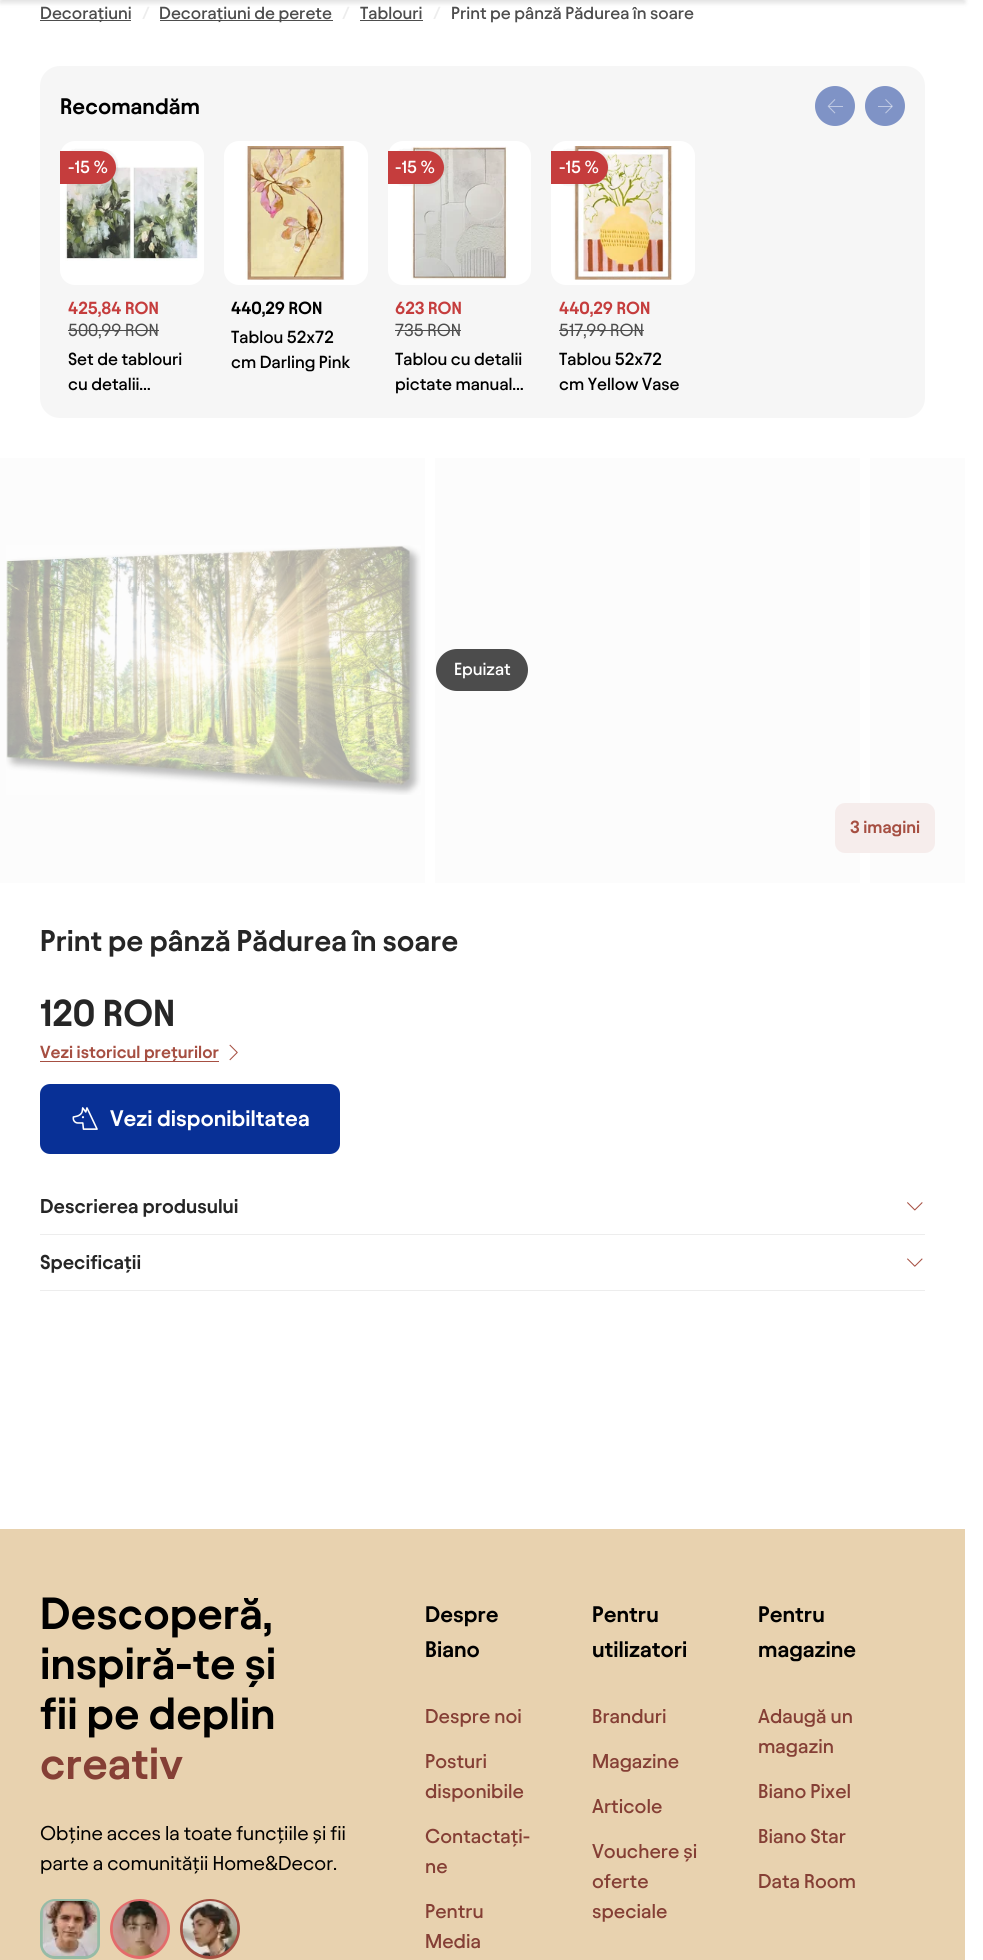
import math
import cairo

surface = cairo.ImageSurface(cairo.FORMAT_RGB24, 983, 1960)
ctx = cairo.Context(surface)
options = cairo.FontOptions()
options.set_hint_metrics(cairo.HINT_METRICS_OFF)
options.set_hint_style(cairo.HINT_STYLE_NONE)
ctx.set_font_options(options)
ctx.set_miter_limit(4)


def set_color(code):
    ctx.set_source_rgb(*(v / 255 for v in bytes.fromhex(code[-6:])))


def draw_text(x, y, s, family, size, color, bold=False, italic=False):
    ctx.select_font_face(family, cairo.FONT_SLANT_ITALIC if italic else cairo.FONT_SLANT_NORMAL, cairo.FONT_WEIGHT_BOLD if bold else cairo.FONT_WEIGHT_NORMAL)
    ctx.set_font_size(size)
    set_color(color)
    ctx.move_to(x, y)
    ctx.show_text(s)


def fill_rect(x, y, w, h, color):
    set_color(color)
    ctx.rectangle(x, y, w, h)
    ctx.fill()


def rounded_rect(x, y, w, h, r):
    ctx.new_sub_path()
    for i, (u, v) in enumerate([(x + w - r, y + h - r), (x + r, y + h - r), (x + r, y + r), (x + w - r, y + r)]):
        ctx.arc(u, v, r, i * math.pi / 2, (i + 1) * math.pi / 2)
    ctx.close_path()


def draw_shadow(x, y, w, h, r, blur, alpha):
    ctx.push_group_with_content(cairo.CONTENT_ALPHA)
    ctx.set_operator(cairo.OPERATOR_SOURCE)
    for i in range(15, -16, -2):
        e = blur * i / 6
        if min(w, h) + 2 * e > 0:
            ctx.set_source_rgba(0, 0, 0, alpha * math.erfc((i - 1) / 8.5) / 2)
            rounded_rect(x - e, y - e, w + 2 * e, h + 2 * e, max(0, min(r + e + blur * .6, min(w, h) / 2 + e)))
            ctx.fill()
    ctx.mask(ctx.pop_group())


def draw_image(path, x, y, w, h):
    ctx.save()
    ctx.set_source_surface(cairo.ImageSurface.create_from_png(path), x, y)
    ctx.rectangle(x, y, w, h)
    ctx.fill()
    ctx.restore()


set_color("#ffffff")
ctx.paint()
set_color("#000000")
draw_shadow(0, -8, 965, 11, 0, 2.5, 0.12)
fill_rect(40, 20, 91, 1, "#4d4d4d")
draw_text(40, 19, "Decorațiuni", "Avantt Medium", 17.5, "#4d4d4d")
draw_text(142, 19, "/", "Avantt Medium", 17.5, "#ededed")
fill_rect(160, 20, 173, 1, "#4d4d4d")
draw_text(159, 19, "Decorațiuni de perete", "Avantt Medium", 17.5, "#4d4d4d")
draw_text(342, 19, "/", "Avantt Medium", 17.5, "#ededed")
draw_text(360, 19, "Tablouri", "Avantt Medium", 17.5, "#4d4d4d")
fill_rect(360, 20, 63, 1, "#4d4d4d")
draw_text(433, 19, "/", "Avantt Medium", 17.5, "#ededed")
draw_text(451, 19, "Print pe pânză Pădurea în soare", "Avantt Medium", 17.5, "#4d4d4d")
set_color("#f6f6f6")
rounded_rect(40, 66, 885, 352, 20)
ctx.fill()
draw_text(60, 114, "Recomandăm", "Avantt SemiBold", 22.5, "#000000")
set_color("#7f93c6")
ctx.new_path()
ctx.arc(835, 106, 20, 0, 2 * math.pi)
ctx.fill()
draw_image("assets/img1.png", 827, 99, 16, 15)
ctx.arc(885, 106, 20, 0, 2 * math.pi)
ctx.fill()
draw_image("assets/img2.png", 878, 99, 15, 15)
set_color("#ffffff")
rounded_rect(60, 141, 144, 144, 15)
ctx.fill()
draw_image("assets/img3.png", 65, 166, 133, 95)
set_color("#000000")
draw_shadow(61, 154, 57, 32, 16, 0.5, 0.04)
draw_shadow(61, 149, 57, 32, 16, 0.5, 0.04)
set_color("#c53d3d")
ctx.new_path()
ctx.move_to(60, 151)
ctx.line_to(99.5, 151)
ctx.curve_to(108.5, 151, 116, 158.5, 116, 167.5)
ctx.curve_to(116, 176.5, 108.5, 184, 99.5, 184)
ctx.line_to(60, 184)
ctx.close_path()
ctx.fill()
draw_text(68, 173, "-15 %", "Avantt Medium", 17.5, "#ffffff")
draw_text(68, 314, "425,84 RON", "Avantt SemiBold", 17.5, "#c53d3d")
draw_text(68, 336, "500,99 RON", "Avantt", 17.5, "#4d4d4d")
fill_rect(68, 330, 91, 1, "#4d4d4d")
draw_text(68, 365, "Set de tablouri", "Avantt Medium", 17.5, "#000000")
draw_text(68, 390, "cu detalii…", "Avantt Medium", 17.5, "#000000")
set_color("#ffffff")
rounded_rect(224, 141, 144, 144, 15)
ctx.fill()
draw_image("assets/img4.png", 245, 146, 100, 134)
draw_text(231, 314, "440,29 RON", "Avantt SemiBold", 17.5, "#000000")
draw_text(231, 343, "Tablou 52x72", "Avantt Medium", 17.5, "#000000")
draw_text(231, 368, "cm Darling Pink", "Avantt Medium", 17.5, "#000000")
set_color("#ffffff")
rounded_rect(388, 141, 143, 144, 15)
ctx.fill()
draw_image("assets/img5.png", 411, 146, 97, 134)
set_color("#000000")
draw_shadow(389, 154, 56, 32, 16, 0.5, 0.04)
draw_shadow(389, 149, 56, 32, 16, 0.5, 0.04)
set_color("#c53d3d")
ctx.new_path()
ctx.move_to(388, 151)
ctx.line_to(427.5, 151)
ctx.curve_to(436.5, 151, 444, 158.5, 444, 167.5)
ctx.curve_to(444, 176.5, 436.5, 184, 427.5, 184)
ctx.line_to(388, 184)
ctx.close_path()
ctx.fill()
draw_text(395, 173, "-15 %", "Avantt Medium", 17.5, "#ffffff")
draw_text(395, 314, "623 RON", "Avantt SemiBold", 17.5, "#c53d3d")
draw_text(395, 336, "735 RON", "Avantt", 17.5, "#4d4d4d")
fill_rect(395, 330, 66, 1, "#4d4d4d")
draw_text(395, 365, "Tablou cu detalii", "Avantt Medium", 17.5, "#000000")
draw_text(395, 390, "pictate manual…", "Avantt Medium", 17.5, "#000000")
set_color("#ffffff")
rounded_rect(551, 141, 144, 144, 15)
ctx.fill()
draw_image("assets/img6.png", 573, 146, 100, 134)
set_color("#000000")
draw_shadow(553, 154, 56, 32, 16, 0.5, 0.04)
draw_shadow(553, 149, 56, 32, 16, 0.5, 0.04)
set_color("#c53d3d")
ctx.new_path()
ctx.move_to(551, 151)
ctx.line_to(591.5, 151)
ctx.curve_to(600.5, 151, 608, 158.5, 608, 167.5)
ctx.curve_to(608, 176.5, 600.5, 184, 591.5, 184)
ctx.line_to(551, 184)
ctx.close_path()
ctx.fill()
draw_text(559, 173, "-15 %", "Avantt Medium", 17.5, "#ffffff")
draw_text(559, 314, "440,29 RON", "Avantt SemiBold", 17.5, "#c53d3d")
draw_text(559, 336, "517,99 RON", "Avantt", 17.5, "#4d4d4d")
fill_rect(559, 330, 85, 1, "#4d4d4d")
draw_text(559, 365, "Tablou 52x72", "Avantt Medium", 17.5, "#000000")
draw_text(559, 390, "cm Yellow Vase", "Avantt Medium", 17.5, "#000000")
fill_rect(0, 458, 425, 425, "#fcfcfc")
draw_image("assets/img7.png", 6, 545, 415, 250)
fill_rect(435, 458, 425, 425, "#fcfcfc")
fill_rect(870, 458, 95, 425, "#fcfcfc")
set_color("#4c4c4c")
rounded_rect(436, 649, 92, 42, 21)
ctx.fill()
draw_text(454, 675, "Epuizat", "Avantt Medium", 17.5, "#ffffff")
set_color("#f6edec")
rounded_rect(835, 803, 100, 50, 10)
ctx.fill()
draw_text(850, 833, "3 imagini", "Avantt SemiBold", 17.5, "#a64f42")
draw_text(40, 951, "Print pe pânză Pădurea în soare", "Avantt SemiBold", 30, "#262626")
draw_text(40, 1026, "120 RON", "Avantt SemiBold", 37.5, "#262626")
fill_rect(40, 1061, 179, 1, "#a64f42")
draw_text(40, 1058, "Vezi istoricul prețurilor", "Avantt SemiBold", 17.5, "#a64f42")
draw_image("assets/img8.png", 229, 1044, 9, 17)
set_color("#083096")
rounded_rect(40, 1084, 300, 70, 10)
ctx.fill()
draw_image("assets/img9.png", 72, 1107, 26, 23)
draw_text(110, 1126, "Vezi disponibiltatea", "Avantt SemiBold", 22.5, "#ffffff")
fill_rect(40, 1234, 885, 1, "#ededed")
draw_text(40, 1213, "Descrierea produsului", "Avantt SemiBold", 20, "#262626")
draw_image("assets/img10.png", 907, 1202, 16, 9)
fill_rect(40, 1290, 885, 1, "#ededed")
draw_text(40, 1269, "Specificații", "Avantt SemiBold", 20, "#262626")
draw_image("assets/img11.png", 907, 1258, 16, 9)
fill_rect(0, 1529, 965, 431, "#e8d2af")
draw_text(40, 1629, "Descoperă,", "Avantt SemiBold", 45, "#000000")
draw_text(40, 1679, "inspiră-te și", "Avantt SemiBold", 45, "#000000")
draw_text(40, 1729, "fii pe deplin", "Avantt SemiBold", 45, "#000000")
draw_text(40, 1779, "creativ", "Avantt SemiBold", 45, "#853f35")
draw_text(40, 1840, "Obține acces la toate funcțiile și fii", "Avantt", 20, "#000000")
draw_text(40, 1870, "parte a comunității Home&Decor.", "Avantt", 20, "#000000")
set_color("#96bba6")
rounded_rect(40, 1899, 60, 60, 15)
ctx.fill()
draw_image("assets/img12.png", 42, 1901, 56, 55)
set_color("#e36b6b")
ctx.arc(140, 1929, 30, 0, 2 * math.pi)
ctx.fill()
draw_image("assets/img13.png", 112, 1901, 56, 55)
set_color("#a64f42")
ctx.arc(210, 1929, 30, 0, 2 * math.pi)
ctx.fill()
draw_image("assets/img14.png", 182, 1901, 56, 55)
draw_text(425, 1622, "Despre", "Avantt SemiBold", 22.5, "#000000")
draw_text(425, 1657, "Biano", "Avantt SemiBold", 22.5, "#000000")
draw_text(425, 1723, "Despre noi", "Avantt Medium", 20, "#853f35")
draw_text(425, 1768, "Posturi", "Avantt Medium", 20, "#853f35")
draw_text(425, 1798, "disponibile", "Avantt Medium", 20, "#853f35")
draw_text(425, 1843, "Contactați-", "Avantt Medium", 20, "#853f35")
draw_text(425, 1873, "ne", "Avantt Medium", 20, "#853f35")
draw_text(425, 1918, "Pentru", "Avantt Medium", 20, "#853f35")
draw_text(425, 1948, "Media", "Avantt Medium", 20, "#853f35")
draw_text(592, 1622, "Pentru", "Avantt SemiBold", 22.5, "#000000")
draw_text(592, 1657, "utilizatori", "Avantt SemiBold", 22.5, "#000000")
draw_text(592, 1723, "Branduri", "Avantt Medium", 20, "#853f35")
draw_text(592, 1768, "Magazine", "Avantt Medium", 20, "#853f35")
draw_text(592, 1813, "Articole", "Avantt Medium", 20, "#853f35")
draw_text(592, 1858, "Vouchere și", "Avantt Medium", 20, "#853f35")
draw_text(592, 1888, "oferte", "Avantt Medium", 20, "#853f35")
draw_text(592, 1918, "speciale", "Avantt Medium", 20, "#853f35")
draw_text(758, 1622, "Pentru", "Avantt SemiBold", 22.5, "#000000")
draw_text(758, 1657, "magazine", "Avantt SemiBold", 22.5, "#000000")
draw_text(758, 1723, "Adaugă un", "Avantt Medium", 20, "#853f35")
draw_text(758, 1753, "magazin", "Avantt Medium", 20, "#853f35")
draw_text(758, 1798, "Biano Pixel", "Avantt Medium", 20, "#853f35")
draw_text(758, 1843, "Biano Star", "Avantt Medium", 20, "#853f35")
draw_text(758, 1888, "Data Room", "Avantt Medium", 20, "#853f35")
surface.write_to_png("output.png")
